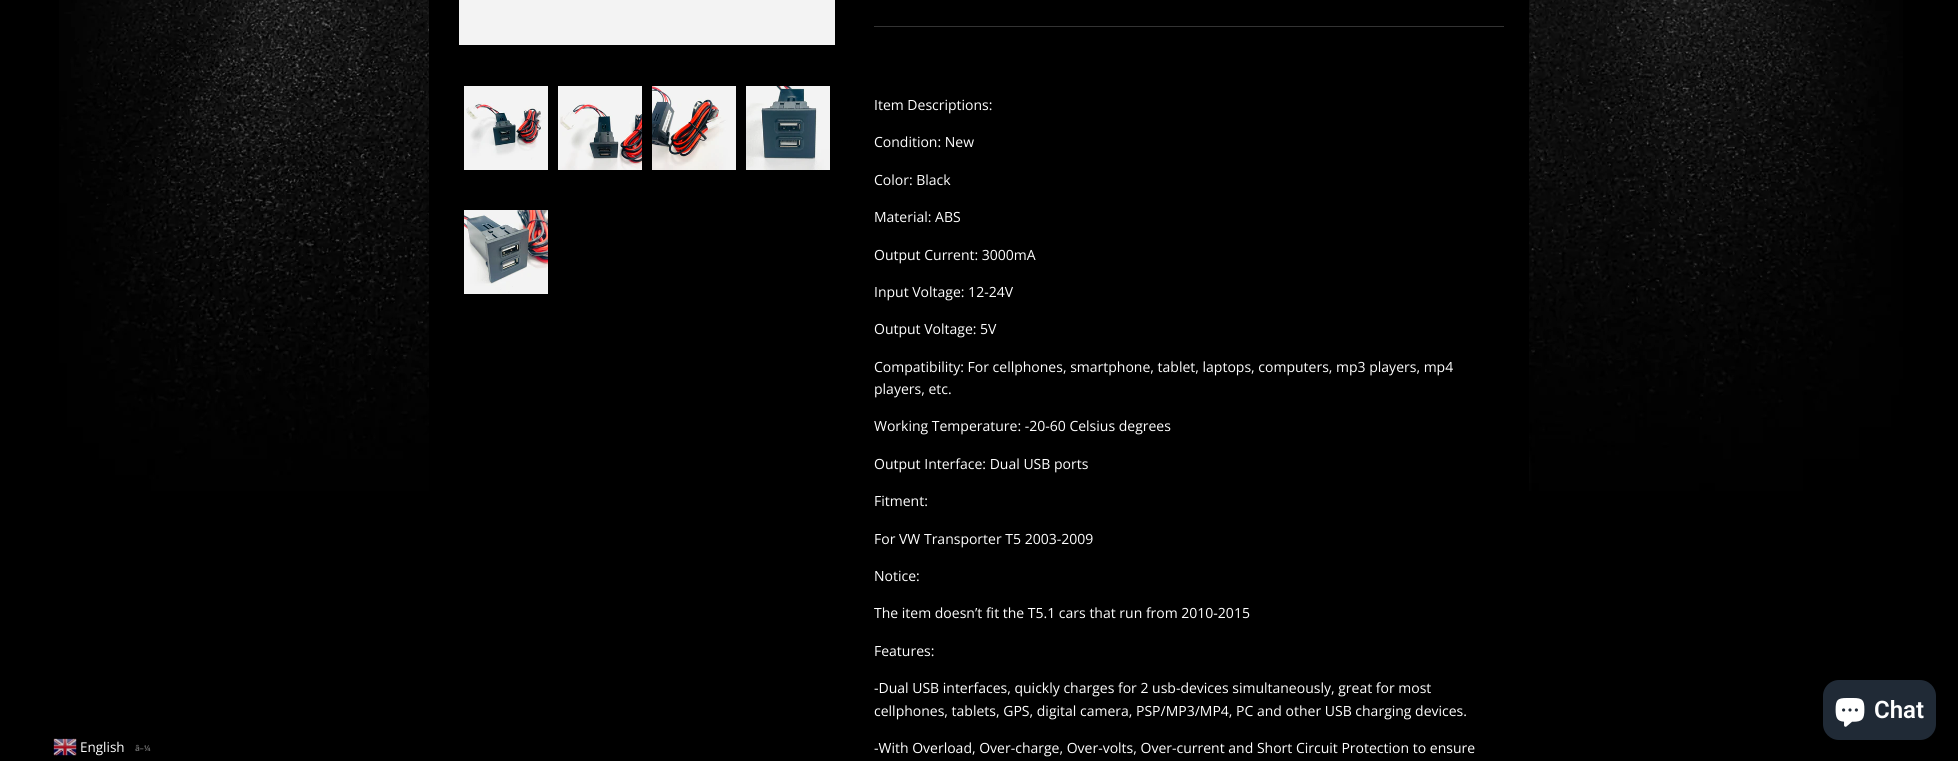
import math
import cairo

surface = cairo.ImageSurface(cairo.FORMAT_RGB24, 1958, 761)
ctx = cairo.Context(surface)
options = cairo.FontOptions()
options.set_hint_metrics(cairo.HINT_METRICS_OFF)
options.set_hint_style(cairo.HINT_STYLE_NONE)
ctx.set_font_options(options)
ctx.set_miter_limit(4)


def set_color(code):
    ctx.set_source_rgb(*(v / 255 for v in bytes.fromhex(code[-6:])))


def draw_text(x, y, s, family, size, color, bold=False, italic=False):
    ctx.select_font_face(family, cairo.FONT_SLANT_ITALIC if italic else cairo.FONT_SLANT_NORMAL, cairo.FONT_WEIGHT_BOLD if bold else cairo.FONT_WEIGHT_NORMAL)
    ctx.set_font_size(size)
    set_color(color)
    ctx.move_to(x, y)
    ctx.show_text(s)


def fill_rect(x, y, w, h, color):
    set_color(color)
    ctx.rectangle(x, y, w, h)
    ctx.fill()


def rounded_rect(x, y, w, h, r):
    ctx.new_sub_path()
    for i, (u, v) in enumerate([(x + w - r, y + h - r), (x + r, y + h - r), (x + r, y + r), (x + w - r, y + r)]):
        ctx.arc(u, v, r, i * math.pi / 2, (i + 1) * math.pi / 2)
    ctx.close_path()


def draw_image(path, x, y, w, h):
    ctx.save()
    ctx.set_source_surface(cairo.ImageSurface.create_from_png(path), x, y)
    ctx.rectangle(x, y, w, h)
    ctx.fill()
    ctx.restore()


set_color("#000000")
ctx.paint()
draw_image("assets/img1.png", 59, 0, 1844, 491)
fill_rect(429, 0, 1100, 491, "#000000")
fill_rect(459, 0, 376, 45, "#f3f3f3")
draw_image("assets/img2.png", 464, 86, 84, 84)
draw_image("assets/img3.png", 558, 86, 84, 84)
draw_image("assets/img4.png", 652, 86, 84, 84)
draw_image("assets/img5.png", 746, 86, 84, 84)
draw_image("assets/img6.png", 464, 210, 84, 84)
fill_rect(874, 26, 630, 1, "#333333")
draw_text(874, 110, "Item Descriptions:", "Open Sans", 14, "#ffffff")
draw_text(874, 147, "Condition: New", "Open Sans", 14, "#ffffff")
draw_text(874, 185, "Color: Black", "Open Sans", 14, "#ffffff")
draw_text(874, 222, "Material: ABS", "Open Sans", 14, "#ffffff")
draw_text(874, 260, "Output Current: 3000mA", "Open Sans", 14, "#ffffff")
draw_text(874, 297, "Input Voltage: 12-24V", "Open Sans", 14, "#ffffff")
draw_text(874, 334, "Output Voltage: 5V", "Open Sans", 14, "#ffffff")
draw_text(874, 372, "Compatibility: For cellphones, smartphone, tablet, laptops, computers, mp3 players, mp4", "Open Sans", 14, "#ffffff")
draw_text(874, 394, "players, etc.", "Open Sans", 14, "#ffffff")
draw_text(874, 431, "Working Temperature: -20-60 Celsius degrees", "Open Sans", 14, "#ffffff")
draw_text(874, 469, "Output Interface: Dual USB ports", "Open Sans", 14, "#ffffff")
draw_text(874, 506, "Fitment:", "Open Sans", 14, "#ffffff")
draw_text(874, 544, "For VW Transporter T5 2003-2009", "Open Sans", 14, "#ffffff")
draw_text(874, 581, "Notice:", "Open Sans", 14, "#ffffff")
draw_text(874, 618, "The item doesn’t fit the T5.1 cars that run from 2010-2015", "Open Sans", 14, "#ffffff")
draw_text(874, 656, "Features:", "Open Sans", 14, "#ffffff")
draw_text(874, 693, "-Dual USB interfaces, quickly charges for 2 usb-devices simultaneously, great for most", "Open Sans", 14, "#ffffff")
draw_text(874, 716, "cellphones, tablets, GPS, digital camera, PSP/MP3/MP4, PC and other USB charging devices.", "Open Sans", 14, "#ffffff")
draw_text(874, 753, "-With Overload, Over-charge, Over-volts, Over-current and Short Circuit Protection to ensure", "Open Sans", 14, "#ffffff")
set_color("#202a36")
rounded_rect(1823, 680, 113, 60, 16)
ctx.fill()
draw_image("assets/img7.png", 1835, 698, 30, 29)
draw_text(1874, 718, "Chat", "Roboto SemiBold", 24, "#ffffff")
draw_image("assets/img8.png", 53, 738, 24, 18)
draw_text(80, 752, "English", "Open Sans", 13.5, "#ffffff")
draw_text(135, 751, "â–¼", "Open Sans", 8, "#666666", bold=True)
surface.write_to_png("output.png")
